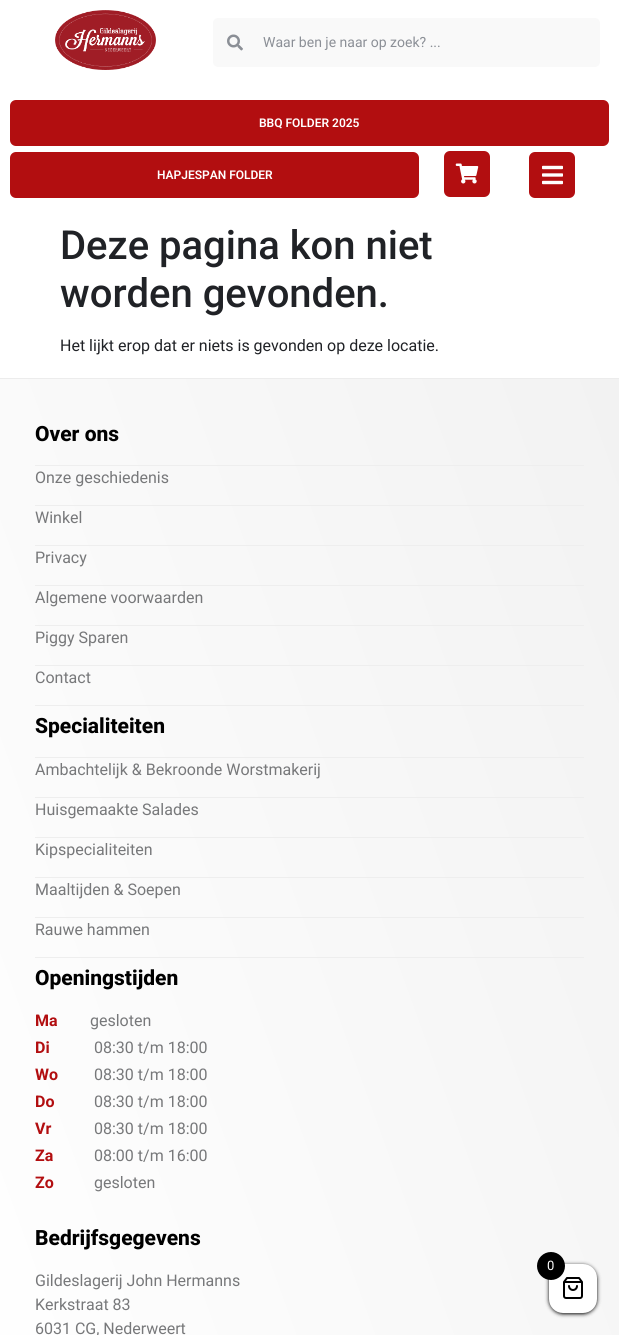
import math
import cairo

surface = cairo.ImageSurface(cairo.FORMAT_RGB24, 619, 1335)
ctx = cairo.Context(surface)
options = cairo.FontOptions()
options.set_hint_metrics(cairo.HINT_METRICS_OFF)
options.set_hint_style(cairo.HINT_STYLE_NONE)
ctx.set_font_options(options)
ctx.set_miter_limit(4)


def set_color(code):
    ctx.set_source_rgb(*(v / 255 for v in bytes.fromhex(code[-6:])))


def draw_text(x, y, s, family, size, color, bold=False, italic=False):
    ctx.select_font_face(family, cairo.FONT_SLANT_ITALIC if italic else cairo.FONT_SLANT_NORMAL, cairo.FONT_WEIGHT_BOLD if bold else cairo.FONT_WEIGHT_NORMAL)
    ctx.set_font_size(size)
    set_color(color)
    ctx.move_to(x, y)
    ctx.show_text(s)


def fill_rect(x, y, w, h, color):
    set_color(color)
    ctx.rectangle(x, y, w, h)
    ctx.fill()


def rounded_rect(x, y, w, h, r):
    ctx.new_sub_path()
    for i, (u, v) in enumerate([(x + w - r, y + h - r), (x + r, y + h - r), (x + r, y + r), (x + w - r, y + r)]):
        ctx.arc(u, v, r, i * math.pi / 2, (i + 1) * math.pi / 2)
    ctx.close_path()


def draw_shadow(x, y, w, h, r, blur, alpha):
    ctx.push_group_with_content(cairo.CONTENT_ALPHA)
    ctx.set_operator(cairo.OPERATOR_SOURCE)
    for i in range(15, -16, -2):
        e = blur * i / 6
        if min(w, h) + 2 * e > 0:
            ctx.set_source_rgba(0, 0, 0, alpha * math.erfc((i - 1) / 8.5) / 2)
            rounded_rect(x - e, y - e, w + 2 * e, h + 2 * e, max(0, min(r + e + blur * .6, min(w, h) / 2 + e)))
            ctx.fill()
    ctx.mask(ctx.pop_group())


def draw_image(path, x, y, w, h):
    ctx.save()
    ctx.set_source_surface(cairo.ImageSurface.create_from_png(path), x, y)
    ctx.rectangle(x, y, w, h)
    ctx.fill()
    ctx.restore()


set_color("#ffffff")
ctx.paint()
draw_image("assets/img1.png", 55, 10, 101, 60)
set_color("#f9f9f9")
rounded_rect(212.5, 17.5, 388, 50, 5.5)
ctx.fill_preserve()
set_color("#ffffff")
ctx.set_line_width(1)
ctx.stroke()
draw_image("assets/img2.png", 227, 34, 16, 17)
draw_text(263, 47, "Waar ben je naar op zoek? ...", "Roboto", 14, "#8b8f96")
set_color("#b20e10")
rounded_rect(10, 100, 599, 46, 6)
ctx.fill()
draw_text(259, 127, "BBQ FOLDER 2025", "Roboto SemiBold", 12, "#ffffff")
set_color("#b20e10")
rounded_rect(10, 152, 409, 46, 6)
ctx.fill()
draw_text(157, 179, "HAPJESPAN FOLDER", "Roboto SemiBold", 12, "#ffffff")
set_color("#b20e10")
rounded_rect(444, 151, 46, 46, 6)
ctx.fill()
draw_image("assets/img3.png", 455, 163, 24, 21)
rounded_rect(529, 152, 46, 46, 6)
ctx.fill()
draw_image("assets/img4.png", 542, 165, 21, 20)
draw_text(60, 259, "Deze pagina kon niet", "Roboto Medium", 40, "#202226")
draw_text(60, 307, "worden gevonden.", "Roboto Medium", 40, "#202226")
draw_text(60, 351, "Het lijkt erop dat er niets is gevonden op deze locatie.", "Roboto", 16, "#202226")
gradient = cairo.LinearGradient(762, 772, -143, 1101)
gradient.add_color_stop_rgba(0, 0.949, 0.949, 0.949, 1)
gradient.add_color_stop_rgba(1, 1, 1, 1, 1)
ctx.set_source(gradient)
ctx.rectangle(0, 379, 619, 956)
ctx.fill()
fill_rect(0, 378, 619, 1, "#ececec")
draw_text(35, 441, "Over ons", "Roboto ExtraBold", 21, "#000000")
fill_rect(35, 465, 549, 1, "#eeeeee")
draw_text(35, 483, "Onze geschiedenis", "Roboto", 16, "#77787a")
fill_rect(35, 505, 549, 1, "#eeeeee")
draw_text(35, 523, "Winkel", "Roboto", 16, "#77787a")
fill_rect(35, 545, 549, 1, "#eeeeee")
draw_text(35, 563, "Privacy", "Roboto", 16, "#77787a")
fill_rect(35, 585, 549, 1, "#eeeeee")
draw_text(35, 603, "Algemene voorwaarden", "Roboto", 16, "#77787a")
fill_rect(35, 625, 549, 1, "#eeeeee")
draw_text(35, 643, "Piggy Sparen", "Roboto", 16, "#77787a")
fill_rect(35, 705, 549, 1, "#eeeeee")
fill_rect(35, 665, 549, 1, "#eeeeee")
draw_text(35, 683, "Contact", "Roboto", 16, "#77787a")
draw_text(35, 733, "Specialiteiten", "Roboto ExtraBold", 21, "#000000")
fill_rect(35, 757, 549, 1, "#eeeeee")
draw_text(35, 775, "Ambachtelijk & Bekroonde Worstmakerij", "Roboto", 16, "#77787a")
fill_rect(35, 797, 549, 1, "#eeeeee")
draw_text(35, 815, "Huisgemaakte Salades", "Roboto", 16, "#77787a")
fill_rect(35, 837, 549, 1, "#eeeeee")
draw_text(35, 855, "Kipspecialiteiten", "Roboto", 16, "#77787a")
fill_rect(35, 877, 549, 1, "#eeeeee")
draw_text(35, 895, "Maaltijden & Soepen", "Roboto", 16, "#77787a")
fill_rect(35, 957, 549, 1, "#eeeeee")
fill_rect(35, 917, 549, 1, "#eeeeee")
draw_text(35, 935, "Rauwe hammen", "Roboto", 16, "#77787a")
draw_text(35, 985, "Openingstijden", "Roboto ExtraBold", 21, "#000000")
draw_text(35, 1026, "Ma", "Roboto", 16, "#b20e10", bold=True)
draw_text(90, 1026, "gesloten", "Roboto", 16, "#77787a")
draw_text(35, 1053, "Di", "Roboto", 16, "#b20e10", bold=True)
draw_text(94, 1053, "08:30 t/m 18:00", "Roboto", 16, "#77787a")
draw_text(35, 1080, "Wo", "Roboto", 16, "#b20e10", bold=True)
draw_text(94, 1080, "08:30 t/m 18:00", "Roboto", 16, "#77787a")
draw_text(35, 1107, "Do", "Roboto", 16, "#b20e10", bold=True)
draw_text(94, 1107, "08:30 t/m 18:00", "Roboto", 16, "#77787a")
draw_text(35, 1134, "Vr", "Roboto", 16, "#b20e10", bold=True)
draw_text(94, 1134, "08:30 t/m 18:00", "Roboto", 16, "#77787a")
draw_text(35, 1161, "Za", "Roboto", 16, "#b20e10", bold=True)
draw_text(94, 1161, "08:00 t/m 16:00", "Roboto", 16, "#77787a")
draw_text(35, 1188, "Zo", "Roboto", 16, "#b20e10", bold=True)
draw_text(94, 1188, "gesloten", "Roboto", 16, "#77787a")
draw_text(35, 1245, "Bedrijfsgegevens", "Roboto ExtraBold", 21, "#000000")
draw_text(35, 1286, "Gildeslagerij John Hermanns", "Roboto", 16, "#77787a")
draw_text(35, 1310, "Kerkstraat 83", "Roboto", 16, "#77787a")
draw_text(35, 1334, "6031 CG, Nederweert", "Roboto", 16, "#77787a")
set_color("#000000")
draw_shadow(549, 1265, 48, 49, 14, 2, 1)
set_color("#ffffff")
rounded_rect(549, 1264, 48, 49, 14)
ctx.fill()
set_color("#000000")
ctx.arc(551, 1266, 14, 0, 2 * math.pi)
ctx.fill()
draw_text(547, 1270, "0", "Roboto", 13, "#ffffff")
draw_image("assets/img5.png", 563, 1277, 20, 22)
surface.write_to_png("output.png")
